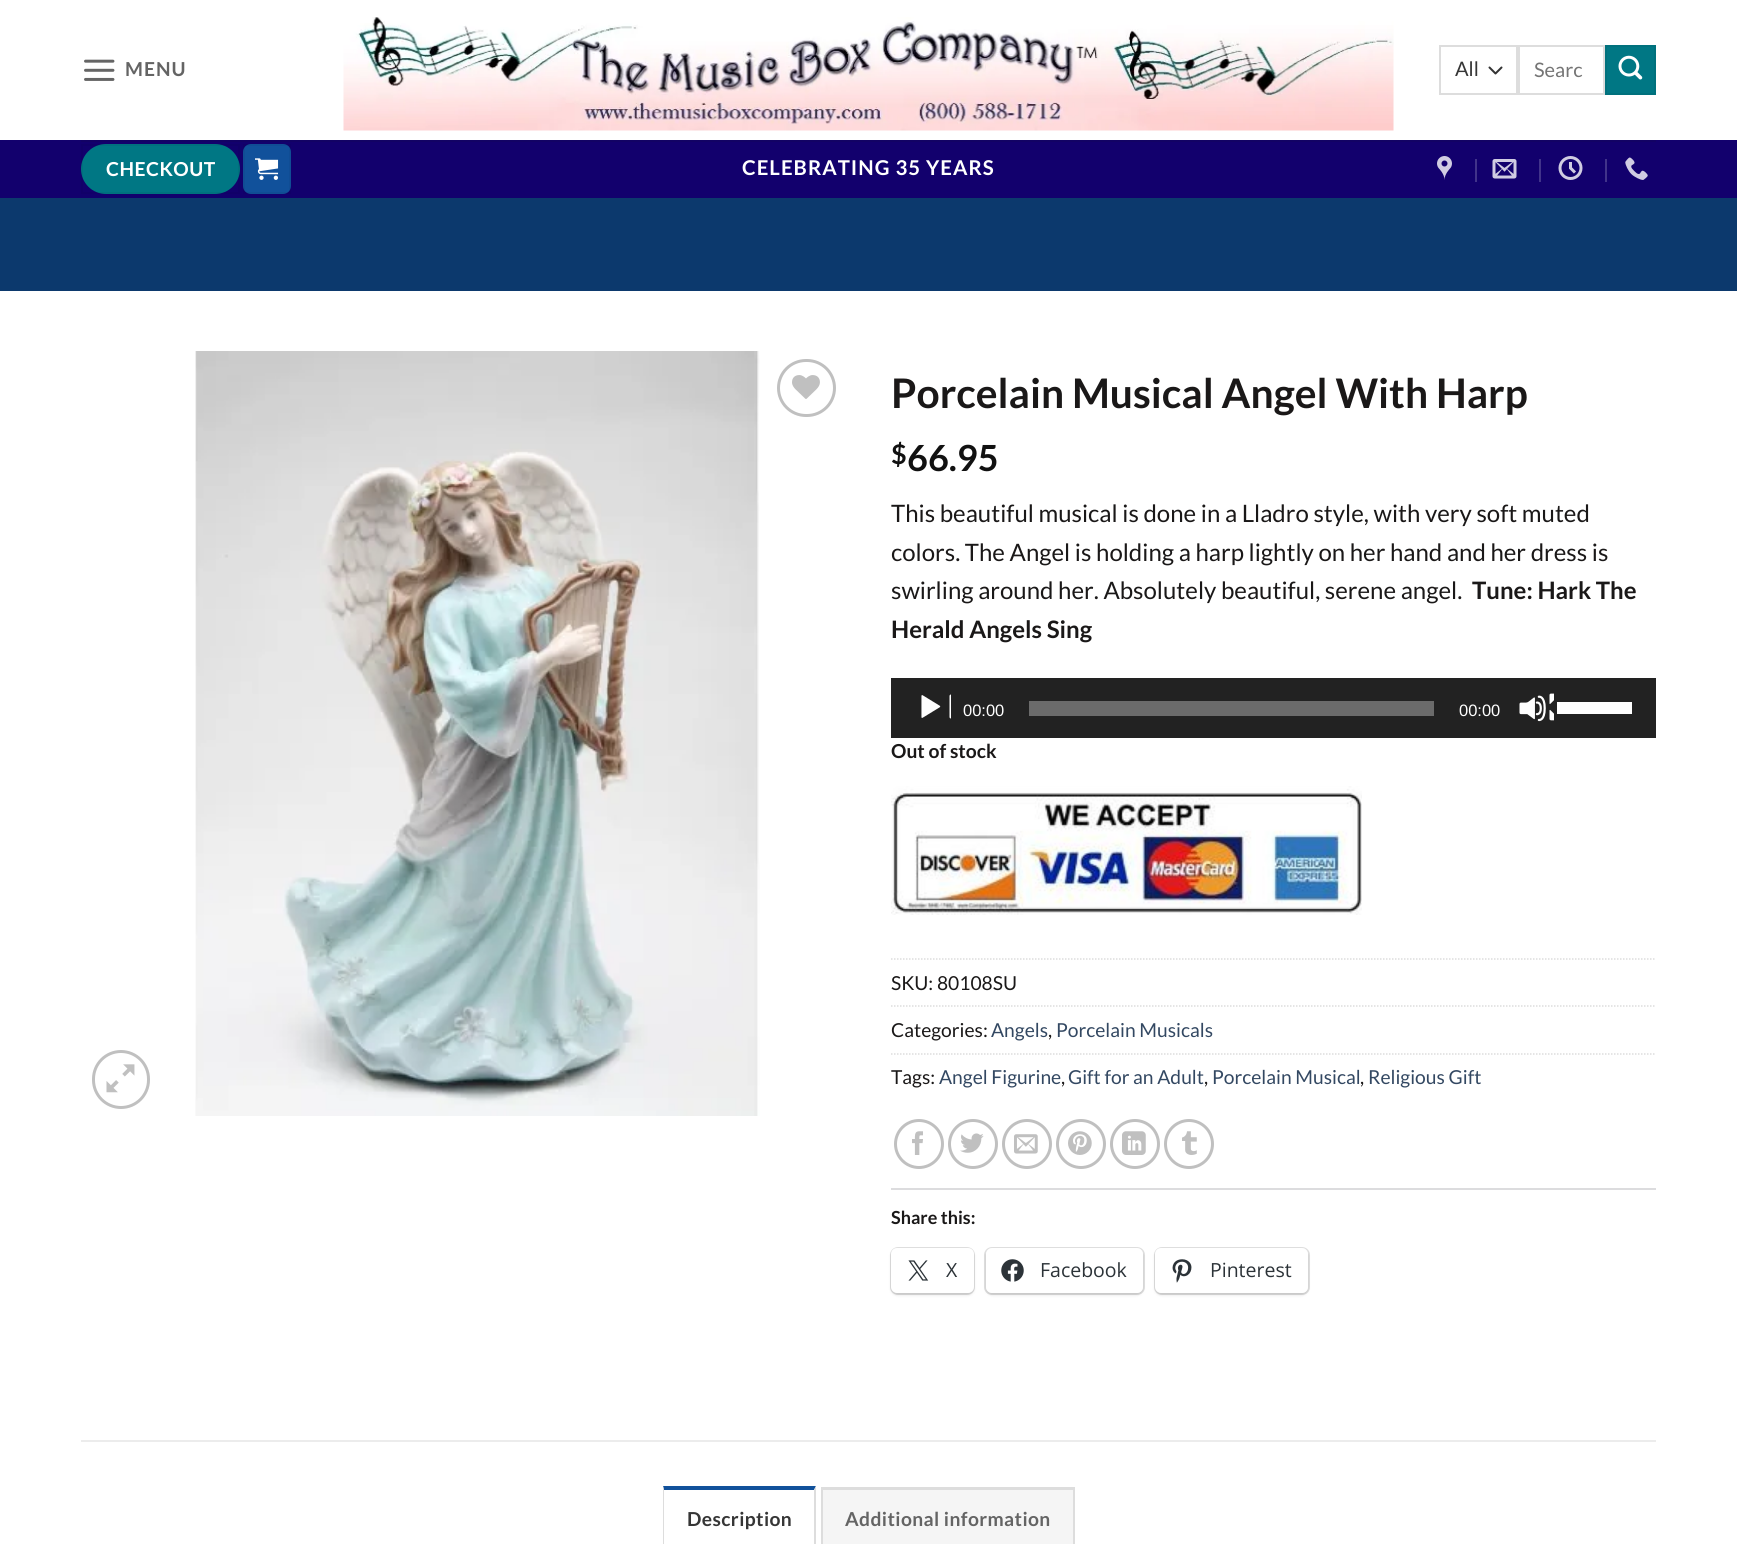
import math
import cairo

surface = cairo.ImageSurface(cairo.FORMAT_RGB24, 1737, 1544)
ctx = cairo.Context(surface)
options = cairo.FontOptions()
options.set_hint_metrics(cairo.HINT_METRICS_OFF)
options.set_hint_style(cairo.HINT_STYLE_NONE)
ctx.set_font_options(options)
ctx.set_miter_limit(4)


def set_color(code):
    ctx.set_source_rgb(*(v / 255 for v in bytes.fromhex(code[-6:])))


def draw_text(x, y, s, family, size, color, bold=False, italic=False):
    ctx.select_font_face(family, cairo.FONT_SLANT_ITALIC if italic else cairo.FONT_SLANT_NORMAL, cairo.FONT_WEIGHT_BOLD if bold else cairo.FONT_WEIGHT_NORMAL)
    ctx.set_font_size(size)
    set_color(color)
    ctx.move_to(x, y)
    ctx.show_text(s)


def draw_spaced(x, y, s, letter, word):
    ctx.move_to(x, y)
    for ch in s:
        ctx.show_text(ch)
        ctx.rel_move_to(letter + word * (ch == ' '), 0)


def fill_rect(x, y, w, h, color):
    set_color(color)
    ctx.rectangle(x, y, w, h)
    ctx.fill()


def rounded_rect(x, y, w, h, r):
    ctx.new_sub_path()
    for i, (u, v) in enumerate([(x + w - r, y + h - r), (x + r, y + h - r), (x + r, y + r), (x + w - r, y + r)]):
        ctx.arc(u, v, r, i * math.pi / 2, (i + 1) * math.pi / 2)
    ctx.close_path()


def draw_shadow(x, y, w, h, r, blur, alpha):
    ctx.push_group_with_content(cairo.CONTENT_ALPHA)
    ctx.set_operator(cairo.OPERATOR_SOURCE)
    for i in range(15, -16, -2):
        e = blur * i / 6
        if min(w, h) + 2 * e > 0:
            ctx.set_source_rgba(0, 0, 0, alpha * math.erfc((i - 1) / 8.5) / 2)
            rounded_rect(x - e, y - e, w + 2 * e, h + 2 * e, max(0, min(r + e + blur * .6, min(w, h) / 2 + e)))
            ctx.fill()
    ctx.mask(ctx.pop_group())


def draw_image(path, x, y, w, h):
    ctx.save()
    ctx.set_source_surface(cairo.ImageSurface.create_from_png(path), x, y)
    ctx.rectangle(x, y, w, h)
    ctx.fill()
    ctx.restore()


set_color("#ffffff")
ctx.paint()
draw_image("assets/img1.png", 84, 59, 31, 22)
ctx.select_font_face("Lato", cairo.FONT_SLANT_NORMAL, cairo.FONT_WEIGHT_BOLD)
ctx.set_font_size(19.25)
set_color("#646464")
draw_spaced(125, 76, "MENU", 1, 0)
draw_image("assets/img2.png", 343, 17, 1051, 114)
ctx.new_path()
ctx.move_to(1489.5, 67.5)
ctx.line_to(1495.5, 73.5)
ctx.line_to(1501.5, 67.5)
set_color("#333333")
ctx.set_line_cap(cairo.LINE_CAP_ROUND)
ctx.set_line_join(cairo.LINE_JOIN_ROUND)
ctx.stroke()
ctx.rectangle(1440, 46, 77, 48)
set_color("#dddddd")
ctx.set_line_cap(cairo.LINE_CAP_BUTT)
ctx.set_line_join(cairo.LINE_JOIN_MITER)
ctx.stroke()
draw_text(1455, 76, "All", "Lato", 20, "#363636")
ctx.rectangle(1519, 46, 85, 48)
set_color("#dddddd")
ctx.stroke()
draw_text(1534, 77, "Searc", "Lato", 20, "#757575")
set_color("#007784")
ctx.rectangle(1606, 46, 49, 48)
ctx.fill_preserve()
set_color("#00717d")
ctx.stroke()
draw_image("assets/img3.png", 1618, 55, 25, 25)
fill_rect(0, 140, 1737, 58, "#12006d")
fill_rect(81, 140, 1575, 2, "#120264")
set_color("#007784")
rounded_rect(81, 144, 159, 50, 25)
ctx.fill()
ctx.rectangle(82, 145, 157, 48)
ctx.set_source_rgba(0, 0, 0, 0.05)
ctx.stroke()
ctx.select_font_face("Lato", cairo.FONT_SLANT_NORMAL, cairo.FONT_WEIGHT_BOLD)
ctx.set_font_size(19.25)
set_color("#ffffff")
draw_spaced(106, 176, "CHECKOUT", 0.5, 0)
set_color("#11519b")
rounded_rect(243, 144, 48, 50, 8)
ctx.fill()
ctx.rectangle(244, 145, 46, 48)
ctx.set_source_rgba(0, 0, 0, 0.05)
ctx.stroke()
draw_image("assets/img4.png", 255, 158, 24, 22)
ctx.set_font_size(20.4)
set_color("#ffffff")
draw_spaced(742, 175, "CELEBRATING 35 YEARS", 1, 0)
draw_image("assets/img5.png", 1437, 156, 15, 24)
fill_rect(1475, 159, 2, 23, "#41338a")
draw_image("assets/img6.png", 1492, 159, 25, 20)
fill_rect(1539, 159, 2, 23, "#41338a")
draw_image("assets/img7.png", 1558, 156, 25, 24)
fill_rect(1605, 159, 2, 23, "#41338a")
draw_image("assets/img8.png", 1625, 157, 23, 23)
fill_rect(0, 198, 1737, 93, "#0c396d")
draw_image("assets/img9.png", 195, 351, 565, 765)
rounded_rect(778.5, 360.5, 56, 55, 27.5)
set_color("#c0c0c0")
ctx.set_line_width(3)
ctx.stroke()
draw_image("assets/img10.png", 792, 375, 28, 24)
rounded_rect(93.5, 1051.5, 55, 56, 27.5)
ctx.stroke()
draw_image("assets/img11.png", 106, 1064, 29, 29)
draw_text(891, 408, "Porcelain Musical Angel With Harp", "Lato", 40.75, "#1a1818", bold=True)
draw_text(891, 464, "$", "Lato", 27, "#111111", bold=True)
draw_text(907, 471, "66.95", "Lato", 36, "#111111", bold=True)
draw_text(891, 522, "This beautiful musical is done in a Lladro style, with very soft muted", "Lato", 24, "#1a1818")
draw_text(891, 561, "colors. The Angel is holding a harp lightly on her hand and her dress is", "Lato", 24, "#1a1818")
draw_text(891, 599, "swirling around her. Absolutely beautiful, serene angel.", "Lato", 24, "#1a1818")
draw_text(1472, 599, "Tune: Hark The", "Lato", 24, "#1a1818", bold=True)
draw_text(891, 638, "Herald Angels Sing", "Lato", 24, "#1a1818", bold=True)
fill_rect(891, 678, 765, 60, "#222222")
draw_image("assets/img12.png", 921, 694, 30, 25)
draw_text(963, 716, "00:00", "Liberation Sans", 16.5, "#ffffff")
fill_rect(1029, 701, 405, 15, "#6b6b6b")
draw_text(1459, 716, "00:00", "Liberation Sans", 16.5, "#ffffff")
draw_image("assets/img13.png", 1519, 693, 35, 29)
fill_rect(1557, 702, 75, 12, "#ffffff")
draw_text(891, 758, "Out of stock", "Lato", 19.25, "#1a1818", bold=True)
draw_image("assets/img14.png", 891, 786, 471, 129)
ctx.new_path()
ctx.move_to(891, 959)
ctx.line_to(1656, 959)
set_color("#dddddd")
ctx.set_line_width(1.5)
ctx.set_dash([1.5, 1.5])
ctx.stroke()
draw_text(891, 990, "SKU: 80108SU", "Lato", 19.25, "#1a1818")
ctx.new_path()
ctx.move_to(891, 1006)
ctx.line_to(1656, 1006)
set_color("#dddddd")
ctx.stroke()
draw_text(891, 1037, "Categories:", "Lato", 19.25, "#1a1818")
draw_text(991, 1037, "Angels", "Lato", 19.25, "#334862")
draw_text(1048, 1037, ",", "Lato", 19.25, "#1a1818")
draw_text(1056, 1037, "Porcelain Musicals", "Lato", 19.25, "#334862")
ctx.new_path()
ctx.move_to(891, 1054)
ctx.line_to(1656, 1054)
set_color("#dddddd")
ctx.stroke()
draw_text(891, 1084, "Tags:", "Lato", 19.25, "#1a1818")
draw_text(939, 1084, "Angel Figurine", "Lato", 19.25, "#334862")
draw_text(1061, 1084, ",", "Lato", 19.25, "#1a1818")
draw_text(1068, 1084, "Gift for an Adult", "Lato", 19.25, "#334862")
draw_text(1204, 1084, ",", "Lato", 19.25, "#1a1818")
draw_text(1212, 1084, "Porcelain Musical", "Lato", 19.25, "#334862")
draw_text(1360, 1084, ",", "Lato", 19.25, "#1a1818")
draw_text(1368, 1084, "Religious Gift", "Lato", 19.25, "#334862")
ctx.new_path()
ctx.arc(919, 1144, 23.5, 0, 2 * math.pi)
set_color("#c0c0c0")
ctx.set_line_width(3)
ctx.set_dash([])
ctx.stroke()
draw_image("assets/img15.png", 912, 1131, 11, 24)
ctx.arc(973, 1144, 23.5, 0, 2 * math.pi)
ctx.stroke()
draw_image("assets/img16.png", 960, 1133, 24, 20)
ctx.arc(1027, 1144, 23.5, 0, 2 * math.pi)
ctx.stroke()
draw_image("assets/img17.png", 1014, 1134, 24, 20)
ctx.arc(1081, 1144, 23.5, 0, 2 * math.pi)
ctx.stroke()
draw_image("assets/img18.png", 1068, 1131, 24, 24)
ctx.arc(1135, 1144, 23.5, 0, 2 * math.pi)
ctx.stroke()
draw_image("assets/img19.png", 1122, 1131, 24, 24)
ctx.arc(1189, 1144, 23.5, 0, 2 * math.pi)
ctx.stroke()
draw_image("assets/img20.png", 1182, 1131, 15, 24)
fill_rect(891, 1188, 765, 2, "#dcdcde")
draw_text(891, 1224, "Share this:", "Lato", 18, "#1a1818", bold=True)
rounded_rect(891, 1248, 83, 46, 7)
set_color("#e0e0e0")
ctx.set_line_width(2)
ctx.stroke()
set_color("#000000")
draw_shadow(891, 1250, 83, 45, 6, 1.5, 0.12)
set_color("#ffffff")
rounded_rect(891, 1248, 83, 45, 6)
ctx.fill()
draw_image("assets/img21.png", 908, 1260, 21, 21)
draw_text(946, 1277, "X", "Open Sans", 19.5, "#2c3338")
rounded_rect(985, 1248, 159, 46, 7)
set_color("#e0e0e0")
ctx.stroke()
set_color("#000000")
draw_shadow(986, 1250, 157, 45, 6, 1.5, 0.12)
set_color("#ffffff")
rounded_rect(986, 1248, 157, 45, 6)
ctx.fill()
draw_image("assets/img22.png", 1001, 1259, 23, 23)
draw_text(1040, 1277, "Facebook", "Open Sans", 19.5, "#2c3338")
rounded_rect(1155, 1248, 154, 46, 7)
set_color("#e0e0e0")
ctx.stroke()
set_color("#000000")
draw_shadow(1155, 1250, 153, 45, 6, 1.5, 0.12)
set_color("#ffffff")
rounded_rect(1155, 1248, 153, 45, 6)
ctx.fill()
draw_image("assets/img23.png", 1172, 1259, 20, 24)
draw_text(1210, 1277, "Pinterest", "Open Sans", 19.5, "#2c3338")
fill_rect(81, 1440, 1575, 2, "#ececec")
set_color("#11519b")
ctx.new_path()
ctx.move_to(663, 1486)
ctx.line_to(816, 1486)
ctx.line_to(814, 1490)
ctx.line_to(664, 1490)
ctx.close_path()
ctx.fill()
set_color("#dddddd")
ctx.new_path()
ctx.move_to(816, 1486)
ctx.line_to(816, 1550)
ctx.line_to(814, 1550)
ctx.line_to(814, 1490)
ctx.close_path()
ctx.fill()
ctx.new_path()
ctx.move_to(663, 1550)
ctx.line_to(663, 1486)
ctx.line_to(664, 1490)
ctx.line_to(664, 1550)
ctx.close_path()
ctx.fill()
ctx.select_font_face("Lato", cairo.FONT_SLANT_NORMAL, cairo.FONT_WEIGHT_BOLD)
ctx.set_font_size(19.25)
set_color("#363636")
draw_spaced(687, 1526, "Description", 0.4, 0)
fill_rect(823, 1490, 250, 54, "#f5f5f5")
fill_rect(821, 1487, 253, 3, "#dddddd")
fill_rect(1073, 1487, 2, 57, "#dddddd")
fill_rect(821, 1487, 2, 57, "#dddddd")
set_color("#646464")
draw_spaced(845, 1526, "Additional information", 0.4, 0)
surface.write_to_png("output.png")
